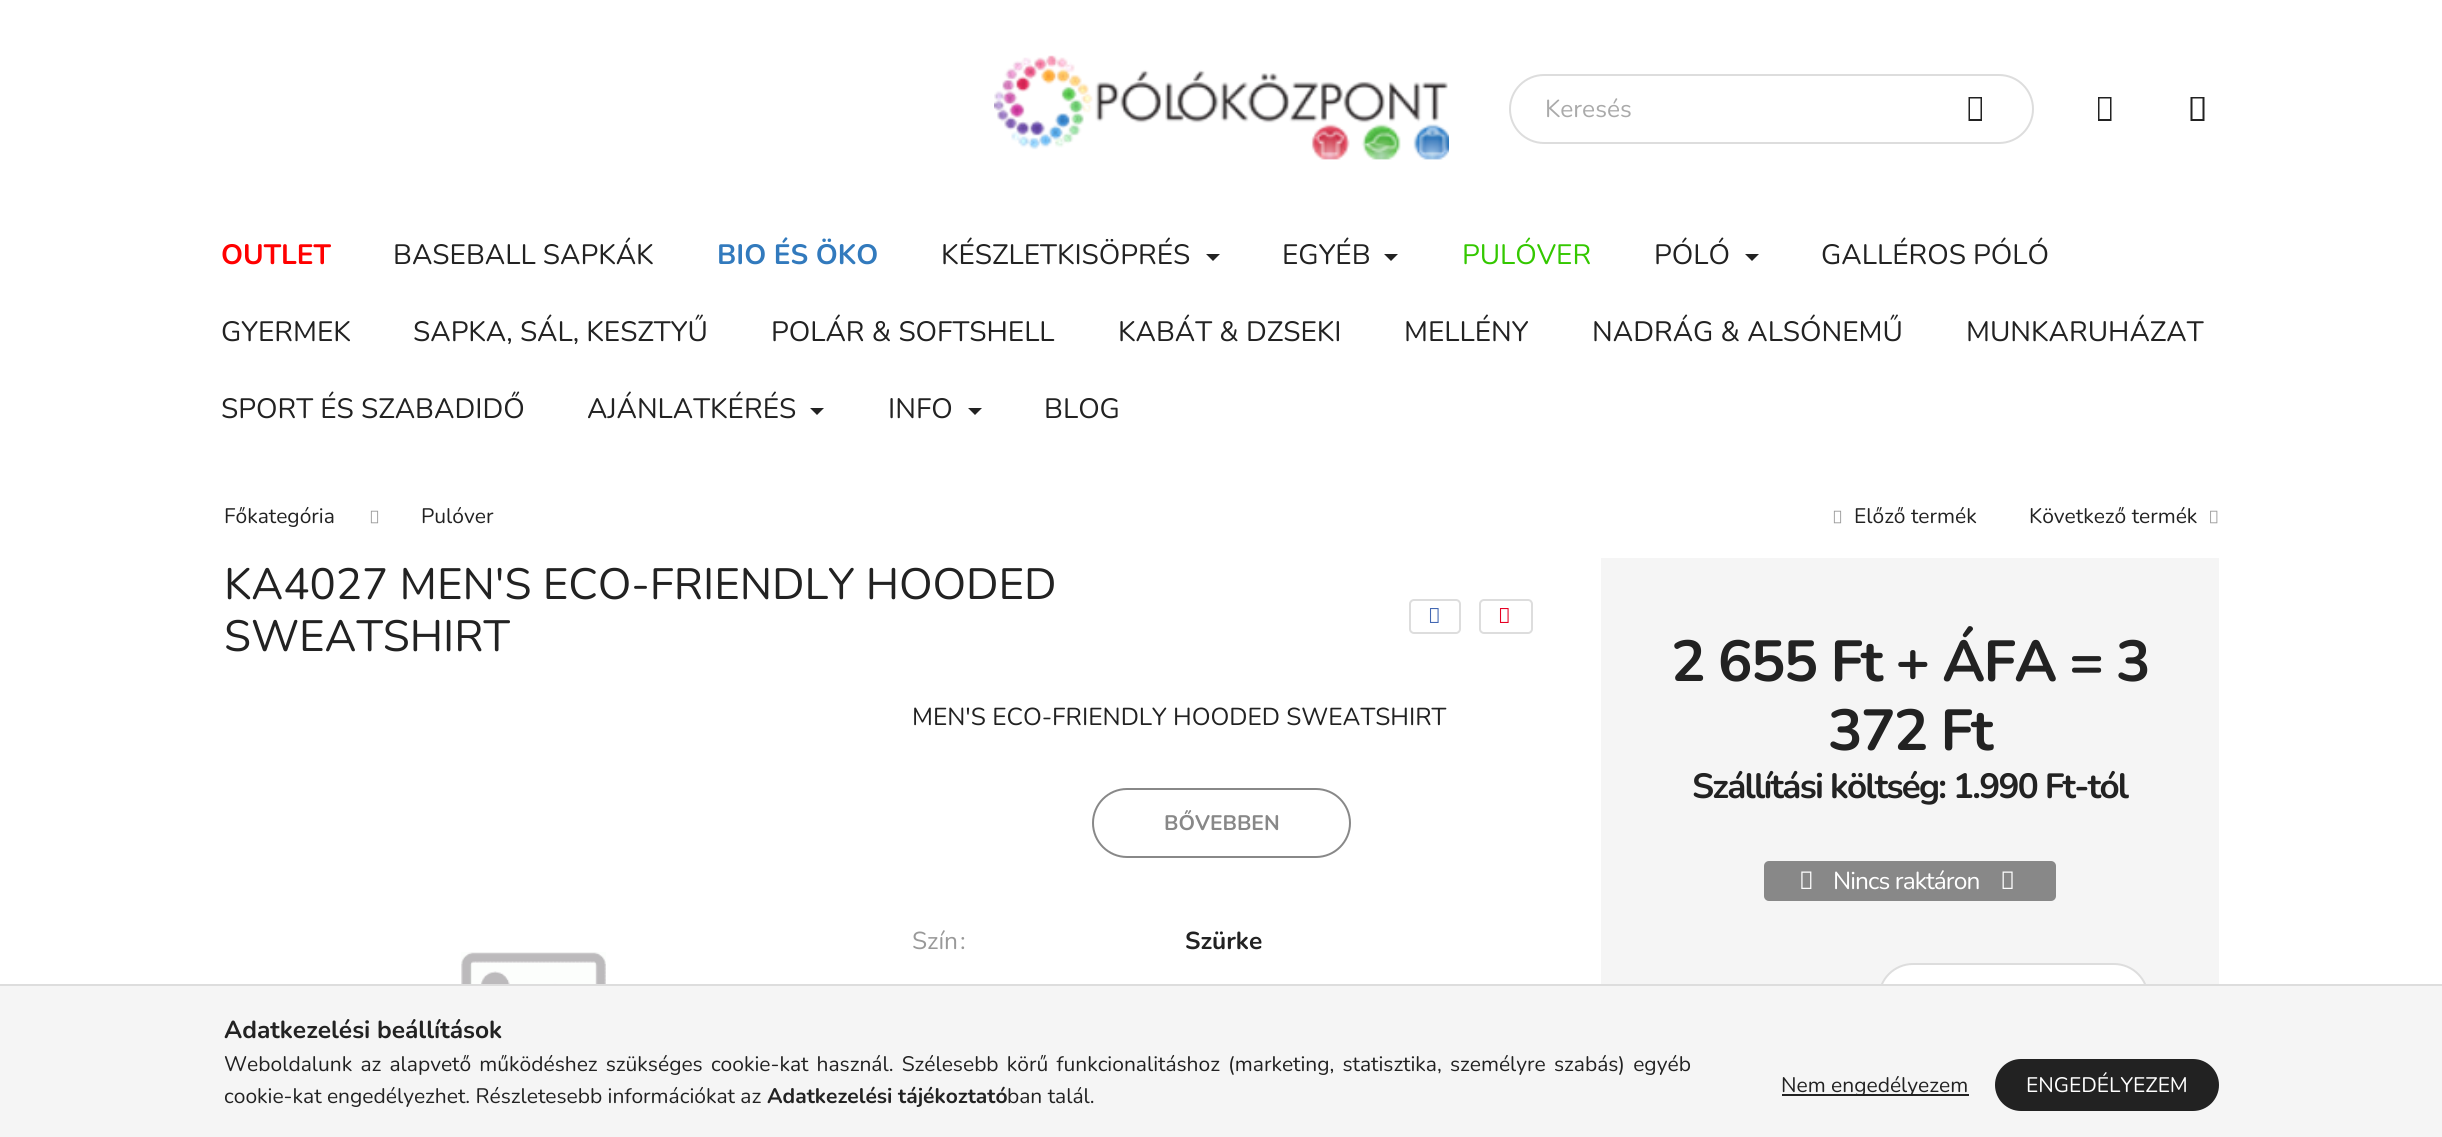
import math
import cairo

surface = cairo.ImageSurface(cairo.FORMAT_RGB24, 2442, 1137)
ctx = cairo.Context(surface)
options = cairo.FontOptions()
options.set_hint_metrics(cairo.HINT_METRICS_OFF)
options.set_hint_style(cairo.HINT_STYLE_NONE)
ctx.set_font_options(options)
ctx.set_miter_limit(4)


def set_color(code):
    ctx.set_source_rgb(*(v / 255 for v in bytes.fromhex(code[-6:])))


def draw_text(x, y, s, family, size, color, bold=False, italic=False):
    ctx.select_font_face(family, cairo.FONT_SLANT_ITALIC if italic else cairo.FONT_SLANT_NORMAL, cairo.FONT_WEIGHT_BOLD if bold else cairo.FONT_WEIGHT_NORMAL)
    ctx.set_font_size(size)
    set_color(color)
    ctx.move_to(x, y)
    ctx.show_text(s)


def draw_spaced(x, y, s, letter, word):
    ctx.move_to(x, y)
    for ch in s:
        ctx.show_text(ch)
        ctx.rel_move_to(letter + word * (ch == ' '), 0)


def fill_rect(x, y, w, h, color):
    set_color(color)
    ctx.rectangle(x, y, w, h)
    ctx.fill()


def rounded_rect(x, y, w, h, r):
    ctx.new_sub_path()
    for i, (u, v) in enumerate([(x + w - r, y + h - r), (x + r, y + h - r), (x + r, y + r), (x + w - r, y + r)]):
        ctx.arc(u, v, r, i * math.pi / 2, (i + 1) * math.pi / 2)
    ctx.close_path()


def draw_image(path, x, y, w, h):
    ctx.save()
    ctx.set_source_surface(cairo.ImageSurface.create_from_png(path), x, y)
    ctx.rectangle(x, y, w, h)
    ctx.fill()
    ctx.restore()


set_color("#ffffff")
ctx.paint()
draw_image("assets/img1.png", 994, 55, 455, 105)
rounded_rect(1510, 75, 523, 68, 34)
set_color("#dddddd")
ctx.stroke()
draw_text(1545, 117, "Keresés", "Nunito", 24.5, "#aaaaaa")
set_color("#222222")
ctx.new_path()
ctx.move_to(1968.5, 121)
ctx.line_to(1968.5, 97)
ctx.line_to(1982, 97)
ctx.line_to(1982, 121)
ctx.close_path()
ctx.move_to(1970, 119)
ctx.line_to(1980.5, 119)
ctx.line_to(1980.5, 98.5)
ctx.line_to(1970, 98.5)
ctx.close_path()
ctx.fill()
ctx.new_path()
ctx.move_to(2098, 121)
ctx.line_to(2098, 97)
ctx.line_to(2111.5, 97)
ctx.line_to(2111.5, 121)
ctx.close_path()
ctx.move_to(2099.5, 119)
ctx.line_to(2110, 119)
ctx.line_to(2110, 98.5)
ctx.line_to(2099.5, 98.5)
ctx.close_path()
ctx.fill()
ctx.new_path()
ctx.move_to(2190.5, 121)
ctx.line_to(2190.5, 97)
ctx.line_to(2204.5, 97)
ctx.line_to(2204.5, 121)
ctx.close_path()
ctx.move_to(2192.5, 119)
ctx.line_to(2202.5, 119)
ctx.line_to(2202.5, 98.5)
ctx.line_to(2192.5, 98.5)
ctx.close_path()
ctx.fill()
draw_text(221, 264, "OUTLET", "Nunito", 28, "#ff0000", bold=True)
draw_text(393, 264, "BASEBALL SAPKÁK", "Nunito", 28, "#222222")
draw_text(717, 264, "BIO ÉS ÖKO", "Nunito", 28, "#327abd", bold=True)
draw_text(941, 264, "KÉSZLETKISÖPRÉS", "Nunito", 28, "#222222")
ctx.new_path()
ctx.move_to(1206, 254)
ctx.line_to(1220, 254)
ctx.line_to(1213, 261)
ctx.close_path()
ctx.fill()
draw_text(1282, 264, "EGYÉB", "Nunito", 28, "#222222")
ctx.new_path()
ctx.move_to(1384, 254)
ctx.line_to(1398, 254)
ctx.line_to(1391, 261)
ctx.close_path()
ctx.fill()
draw_text(1462, 264, "PULÓVER", "Nunito", 28, "#34c800")
draw_text(1654, 264, "PÓLÓ", "Nunito", 28, "#222222")
ctx.new_path()
ctx.move_to(1745, 254)
ctx.line_to(1759, 254)
ctx.line_to(1752, 261)
ctx.close_path()
ctx.fill()
draw_text(1821, 264, "GALLÉROS PÓLÓ", "Nunito", 28, "#222222")
draw_text(221, 341, "GYERMEK", "Nunito", 28, "#222222")
draw_text(413, 341, "SAPKA, SÁL, KESZTYŰ", "Nunito", 28, "#222222")
draw_text(771, 341, "POLÁR & SOFTSHELL", "Nunito", 28, "#222222")
draw_text(1118, 341, "KABÁT & DZSEKI", "Nunito", 28, "#222222")
draw_text(1404, 341, "MELLÉNY", "Nunito", 28, "#222222")
draw_text(1592, 341, "NADRÁG & ALSÓNEMŰ", "Nunito", 28, "#222222")
draw_text(1966, 341, "MUNKARUHÁZAT", "Nunito", 28, "#222222")
draw_text(221, 418, "SPORT ÉS SZABADIDŐ", "Nunito", 28, "#222222")
draw_text(587, 418, "AJÁNLATKÉRÉS", "Nunito", 28, "#222222")
ctx.new_path()
ctx.move_to(810, 408)
ctx.line_to(824, 408)
ctx.line_to(817, 415)
ctx.close_path()
ctx.fill()
draw_text(888, 418, "INFO", "Nunito", 28, "#222222")
ctx.new_path()
ctx.move_to(968, 408)
ctx.line_to(982, 408)
ctx.line_to(975, 415)
ctx.close_path()
ctx.fill()
draw_text(1044, 418, "BLOG", "Nunito", 28, "#222222")
draw_text(224, 523, "Főkategória", "Nunito", 21, "#222222")
draw_image("assets/img2.png", 370, 510, 9, 14)
draw_text(421, 523, "Pulóver", "Nunito", 21, "#222222")
draw_image("assets/img2.png", 1833, 510, 9, 14)
draw_text(1854, 523, "Előző termék", "Nunito", 21, "#222222")
draw_text(2029, 523, "Következő termék", "Nunito", 21, "#222222")
draw_image("assets/img3.png", 2210, 510, 8, 14)
draw_text(224, 599, "KA4027 MEN'S ECO-FRIENDLY HOODED", "Nunito", 43.75, "#222222")
draw_text(224, 651, "SWEATSHIRT", "Nunito", 43.75, "#222222")
rounded_rect(1410, 600, 50, 33, 4)
set_color("#dddddd")
ctx.stroke()
draw_image("assets/img4.png", 1429, 608, 10, 15)
rounded_rect(1480, 600, 52, 33, 4)
ctx.stroke()
draw_image("assets/img5.png", 1499, 608, 10, 15)
draw_text(912, 725, "MEN'S ECO-FRIENDLY HOODED SWEATSHIRT", "Nunito", 24.5, "#222222")
rounded_rect(1093, 789, 257, 68, 34)
set_color("#888888")
ctx.stroke()
draw_text(1164, 830, "BŐVEBBEN", "Nunito", 21, "#888888", bold=True)
draw_text(912, 949, "Szín", "Nunito", 24.5, "#999999")
draw_text(960, 949, ":", "Nunito", 24.5, "#999999")
draw_text(1185, 949, "Szürke", "Nunito", 24.5, "#222222", bold=True)
draw_image("assets/img6.png", 461, 952, 145, 32)
fill_rect(1601, 558, 618, 426, "#f5f5f5")
ctx.set_font_size(57.75)
set_color("#222222")
draw_spaced(1671, 681, "2 655 Ft + ÁFA = 3", -1.75, 0)
draw_spaced(1828, 750, "372 Ft", -1.75, 0)
ctx.set_font_size(35)
draw_spaced(1692, 798, "Szállítási költség: 1.990 Ft-tól", -1.75, 0)
set_color("#888888")
rounded_rect(1764, 861, 292, 40, 5)
ctx.fill()
draw_image("assets/img7.png", 1801, 871, 11, 18)
ctx.select_font_face("Nunito")
ctx.set_font_size(24.5)
set_color("#ffffff")
draw_spaced(1833, 889, "Nincs raktáron", -0.9, 0)
draw_image("assets/img8.png", 2002, 871, 11, 18)
rounded_rect(1879, 964, 269, 68, 34)
ctx.fill_preserve()
set_color("#dddddd")
ctx.stroke()
fill_rect(0, 986, 2442, 151, "#f5f5f5")
fill_rect(0, 984, 2442, 2, "#dddddd")
draw_text(224, 1038, "Adatkezelési beállítások", "Nunito", 24.5, "#222222", bold=True)
ctx.select_font_face("Nunito")
ctx.set_font_size(21)
draw_spaced(224, 1071, "Weboldalunk az alapvető működéshez szükséges cookie-kat használ. Szélesebb körű funkcionalitáshoz (marketing, statisztika, személyre szabás) egyéb", 0, 2.75)
draw_text(224, 1103, "cookie-kat engedélyezhet. Részletesebb információkat az", "Nunito", 21, "#222222")
draw_text(767, 1103, "Adatkezelési tájékoztató", "Nunito", 21, "#222222", bold=True)
draw_text(1007, 1103, "ban talál.", "Nunito", 21, "#222222")
fill_rect(1782, 1094, 187, 2, "#222222")
draw_text(1781, 1092, "Nem engedélyezem", "Nunito", 21, "#222222")
rounded_rect(1996, 1060, 222, 50, 25)
ctx.fill_preserve()
ctx.stroke()
draw_text(2026, 1092, "ENGEDÉLYEZEM", "Nunito", 21, "#ffffff")
surface.write_to_png("output.png")
